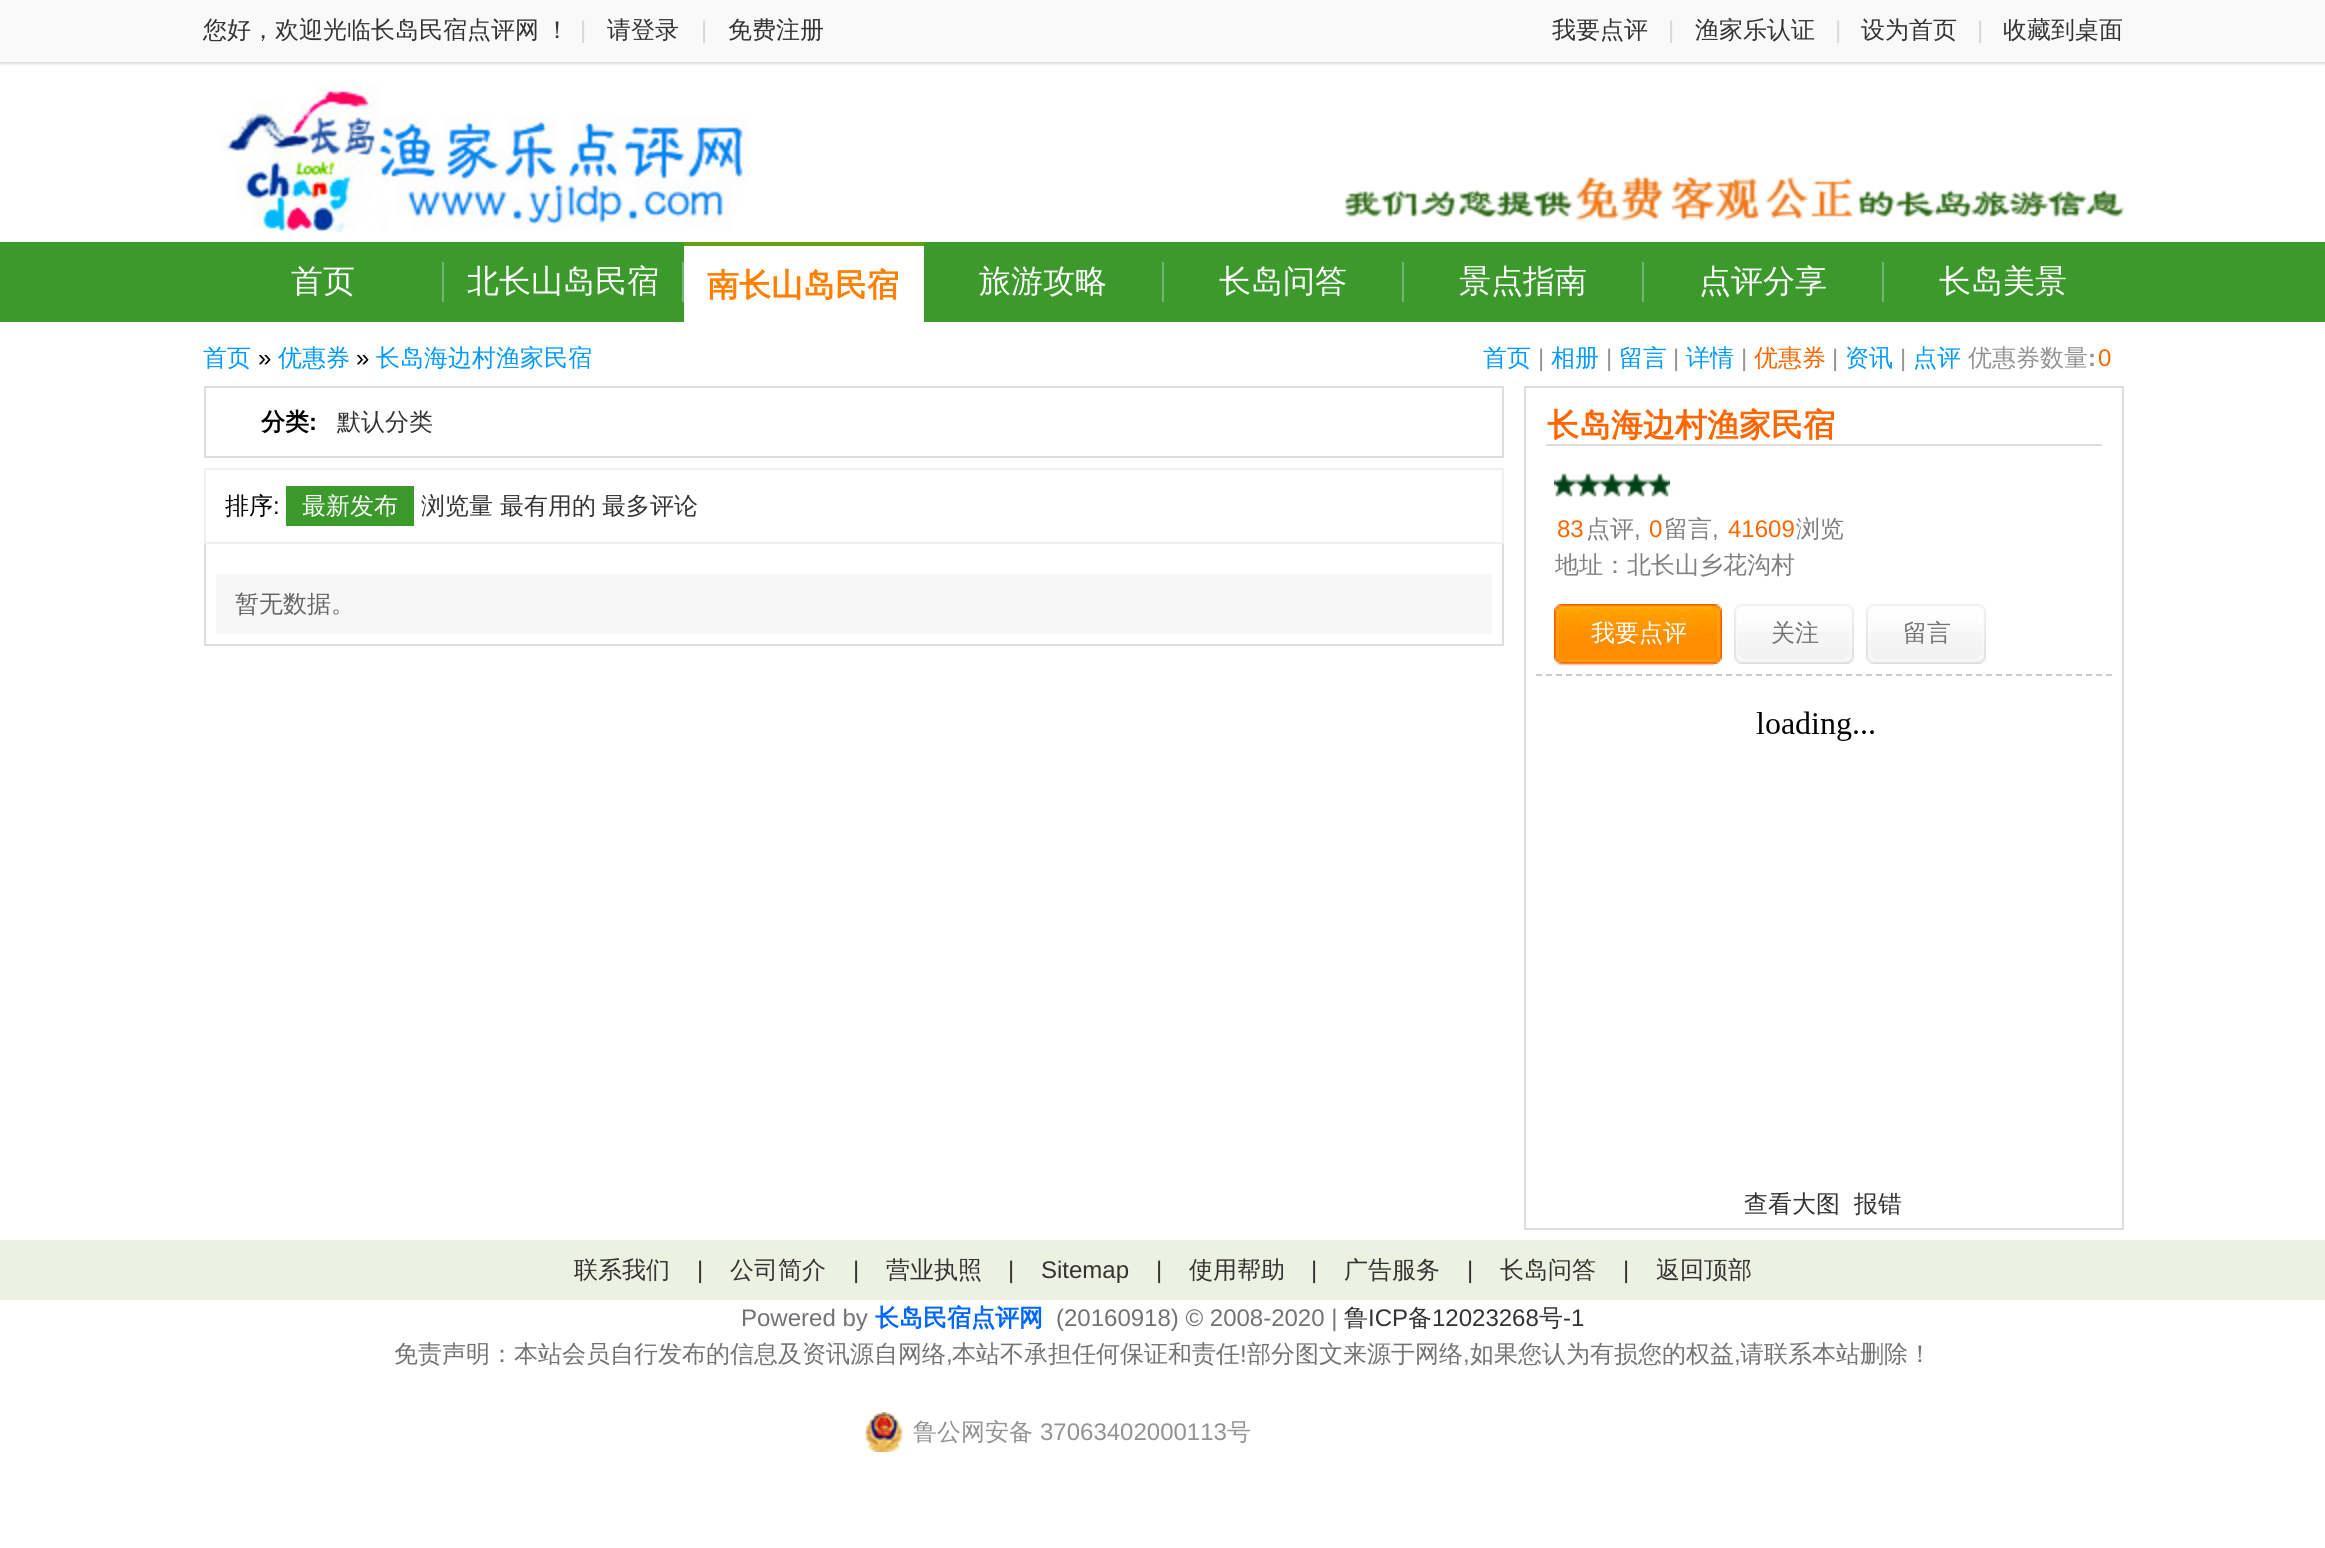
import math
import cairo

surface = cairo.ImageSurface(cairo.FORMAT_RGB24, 2325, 1548)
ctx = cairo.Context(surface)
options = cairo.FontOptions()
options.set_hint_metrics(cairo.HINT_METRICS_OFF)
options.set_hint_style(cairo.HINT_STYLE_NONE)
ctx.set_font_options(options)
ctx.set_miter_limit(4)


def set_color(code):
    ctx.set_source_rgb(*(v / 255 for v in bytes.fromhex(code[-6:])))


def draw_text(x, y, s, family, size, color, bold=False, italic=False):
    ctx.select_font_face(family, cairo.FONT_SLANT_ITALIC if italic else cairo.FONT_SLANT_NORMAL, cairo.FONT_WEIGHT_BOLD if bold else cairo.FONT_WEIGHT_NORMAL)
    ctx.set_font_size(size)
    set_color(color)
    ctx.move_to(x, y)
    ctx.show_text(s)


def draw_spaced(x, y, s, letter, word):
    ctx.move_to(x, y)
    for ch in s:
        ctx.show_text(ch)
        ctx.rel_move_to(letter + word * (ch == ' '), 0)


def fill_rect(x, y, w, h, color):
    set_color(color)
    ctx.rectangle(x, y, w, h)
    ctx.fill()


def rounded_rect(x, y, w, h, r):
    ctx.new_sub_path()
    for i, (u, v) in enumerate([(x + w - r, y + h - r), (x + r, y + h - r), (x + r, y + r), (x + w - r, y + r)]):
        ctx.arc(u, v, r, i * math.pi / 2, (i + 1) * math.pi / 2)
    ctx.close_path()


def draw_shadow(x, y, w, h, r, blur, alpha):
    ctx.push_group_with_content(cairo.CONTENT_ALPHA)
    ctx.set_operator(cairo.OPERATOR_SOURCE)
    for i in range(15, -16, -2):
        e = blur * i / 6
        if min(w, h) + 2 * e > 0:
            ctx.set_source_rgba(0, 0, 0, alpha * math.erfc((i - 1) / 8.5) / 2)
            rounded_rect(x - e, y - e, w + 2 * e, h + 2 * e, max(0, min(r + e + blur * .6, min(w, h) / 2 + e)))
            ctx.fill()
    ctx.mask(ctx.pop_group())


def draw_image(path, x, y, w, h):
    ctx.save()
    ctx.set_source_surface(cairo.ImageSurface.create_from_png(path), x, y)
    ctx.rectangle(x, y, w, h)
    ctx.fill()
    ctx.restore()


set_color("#ffffff")
ctx.paint()
set_color("#dddddd")
draw_shadow(0, 2, 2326, 62, 0, 1, 1)
fill_rect(0, 0, 2325, 62, "#f9f9f9")
ctx.select_font_face("WenQuanYi Zen Hei Medium")
ctx.set_font_size(24)
set_color("#333333")
draw_spaced(203, 38, "您好，欢迎光临长岛民宿点评网 ！", 0, -1)
draw_text(580, 38, "|", "Liberation Sans", 24, "#dfd3d3")
draw_text(607, 38, "请登录", "WenQuanYi Zen Hei Medium", 24, "#333333")
draw_text(701, 38, "|", "Liberation Sans", 24, "#dfd3d3")
draw_text(728, 38, "免费注册", "WenQuanYi Zen Hei Medium", 24, "#333333")
draw_text(1552, 38, "我要点评", "WenQuanYi Zen Hei Medium", 24, "#333333")
draw_text(1668, 38, "|", "Liberation Sans", 24, "#dfd3d3")
draw_text(1695, 38, "渔家乐认证", "WenQuanYi Zen Hei Medium", 24, "#333333")
draw_text(1835, 38, "|", "Liberation Sans", 24, "#dfd3d3")
draw_text(1861, 38, "设为首页", "WenQuanYi Zen Hei Medium", 24, "#333333")
draw_text(1977, 38, "|", "Liberation Sans", 24, "#dfd3d3")
draw_text(2003, 38, "收藏到桌面", "WenQuanYi Zen Hei Medium", 24, "#333333")
draw_image("assets/img1.png", 220, 86, 528, 146)
draw_image("assets/img2.png", 1344, 175, 780, 46)
fill_rect(0, 242, 2325, 80, "#3c9a2c")
draw_text(291, 292, "首页", "WenQuanYi Zen Hei Medium", 32, "#ffffff")
fill_rect(442, 262, 2, 40, "#74b379")
draw_text(467, 292, "北长山岛民宿", "WenQuanYi Zen Hei Medium", 32, "#ffffff")
fill_rect(682, 262, 2, 40, "#74b379")
fill_rect(684, 246, 240, 76, "#ffffff")
fill_rect(684, 242, 240, 4, "#64a10a")
draw_text(707, 296, "南长山岛民宿", "WenQuanYi Zen Hei", 32, "#ff8000", bold=True)
draw_text(979, 292, "旅游攻略", "WenQuanYi Zen Hei Medium", 32, "#ffffff")
fill_rect(1162, 262, 2, 40, "#74b379")
draw_text(1219, 292, "长岛问答", "WenQuanYi Zen Hei Medium", 32, "#ffffff")
fill_rect(1402, 262, 2, 40, "#74b379")
draw_text(1459, 292, "景点指南", "WenQuanYi Zen Hei Medium", 32, "#ffffff")
fill_rect(1642, 262, 2, 40, "#74b379")
draw_text(1699, 292, "点评分享", "WenQuanYi Zen Hei Medium", 32, "#ffffff")
fill_rect(1882, 262, 2, 40, "#74b379")
draw_text(1939, 292, "长岛美景", "WenQuanYi Zen Hei Medium", 32, "#ffffff")
draw_text(203, 366, "首页", "WenQuanYi Zen Hei Medium", 24, "#0099ff")
draw_text(258, 366, "»", "Liberation Sans", 24, "#000000")
draw_text(278, 366, "优惠券", "WenQuanYi Zen Hei Medium", 24, "#0099ff")
draw_text(356, 366, "»", "Liberation Sans", 24, "#000000")
draw_text(376, 366, "长岛海边村渔家民宿", "WenQuanYi Zen Hei Medium", 24, "#0099ff")
draw_text(1483, 366, "首页", "WenQuanYi Zen Hei Medium", 24, "#0099ff")
draw_text(1538, 366, "|", "Liberation Sans", 24, "#939393")
draw_text(1551, 366, "相册", "WenQuanYi Zen Hei Medium", 24, "#0099ff")
draw_text(1606, 366, "|", "Liberation Sans", 24, "#939393")
draw_text(1619, 366, "留言", "WenQuanYi Zen Hei Medium", 24, "#0099ff")
draw_text(1673, 366, "|", "Liberation Sans", 24, "#939393")
draw_text(1686, 366, "详情", "WenQuanYi Zen Hei Medium", 24, "#0099ff")
draw_text(1741, 366, "|", "Liberation Sans", 24, "#939393")
draw_text(1754, 366, "优惠券", "WenQuanYi Zen Hei Medium", 24, "#ff6600")
draw_text(1832, 366, "|", "Liberation Sans", 24, "#939393")
draw_text(1845, 366, "资讯", "WenQuanYi Zen Hei Medium", 24, "#0099ff")
draw_text(1900, 366, "|", "Liberation Sans", 24, "#939393")
draw_text(1913, 366, "点评", "WenQuanYi Zen Hei Medium", 24, "#0099ff")
draw_text(1968, 366, "优惠券数量", "WenQuanYi Zen Hei Medium", 24, "#939393")
draw_text(2088, 366, ":", "Liberation Sans", 24, "#939393", bold=True)
draw_text(2098, 366, "0", "Liberation Sans", 24, "#ff6600")
ctx.rectangle(205, 387, 1298, 70)
set_color("#dddddd")
ctx.stroke()
draw_text(261, 430, "分类", "WenQuanYi Zen Hei", 24, "#000000", bold=True)
draw_text(309, 430, ":", "Liberation Sans", 24, "#000000", bold=True)
draw_text(337, 430, "默认分类", "WenQuanYi Zen Hei Medium", 24, "#333333")
ctx.rectangle(205, 469, 1298, 74)
set_color("#efefef")
ctx.stroke()
draw_text(225, 514, "排序", "WenQuanYi Zen Hei Medium", 24, "#000000")
draw_text(273, 514, ":", "Liberation Sans", 24, "#000000")
fill_rect(286, 486, 128, 40, "#3c9a2c")
draw_text(302, 514, "最新发布", "WenQuanYi Zen Hei Medium", 24, "#ffffff")
draw_text(421, 514, "浏览量", "WenQuanYi Zen Hei Medium", 24, "#333333")
draw_text(500, 514, "最有用的", "WenQuanYi Zen Hei Medium", 24, "#333333")
draw_text(602, 514, "最多评论", "WenQuanYi Zen Hei Medium", 24, "#333333")
fill_rect(1502, 544, 2, 102, "#dddddd")
fill_rect(204, 644, 1300, 2, "#dddddd")
fill_rect(204, 544, 2, 102, "#dddddd")
fill_rect(216, 574, 1276, 60, "#f7f7f7")
draw_text(235, 612, "暂无数据。", "WenQuanYi Zen Hei Medium", 24, "#666666")
ctx.rectangle(1525, 387, 598, 842)
set_color("#dddddd")
ctx.stroke()
fill_rect(1546, 444, 556, 2, "#dddddd")
draw_text(1547, 436, "长岛海边村渔家民宿", "WenQuanYi Zen Hei", 32, "#ff6600", bold=True)
draw_image("assets/img3.png", 1554, 473, 116, 24)
draw_text(1557, 537, "83", "Liberation Sans", 24, "#ff6600")
draw_text(1586, 537, "点评", "WenQuanYi Zen Hei Medium", 24, "#808080")
draw_text(1634, 537, ",", "Liberation Sans", 24, "#808080")
draw_text(1649, 537, "0", "Liberation Sans", 24, "#ff6600")
draw_text(1664, 537, "留言", "WenQuanYi Zen Hei Medium", 24, "#808080")
draw_text(1712, 537, ",", "Liberation Sans", 24, "#808080")
draw_text(1728, 537, "41609", "Liberation Sans", 24, "#ff6600")
draw_text(1796, 537, "浏览", "WenQuanYi Zen Hei Medium", 24, "#808080")
draw_text(1555, 573, "地址：北长山乡花沟村", "WenQuanYi Zen Hei Medium", 24, "#808080")
draw_image("assets/img4.png", 1714, 604, 8, 60)
draw_image("assets/img5.png", 1554, 604, 160, 62)
draw_text(1591, 641, "我要点评", "WenQuanYi Zen Hei Medium", 24, "#ffffff")
draw_image("assets/img6.png", 1846, 604, 8, 60)
draw_image("assets/img7.png", 1734, 604, 112, 60)
draw_text(1771, 641, "关注", "WenQuanYi Zen Hei Medium", 24, "#737373")
draw_image("assets/img6.png", 1978, 604, 8, 60)
draw_image("assets/img7.png", 1866, 604, 112, 60)
draw_text(1903, 641, "留言", "WenQuanYi Zen Hei Medium", 24, "#737373")
ctx.new_path()
ctx.move_to(1536, 675)
ctx.line_to(2112, 675)
set_color("#cccccc")
ctx.set_dash([6, 4])
ctx.stroke()
draw_image("assets/img8.png", 1756, 711, 118, 30)
draw_text(1744, 1212, "查看大图", "WenQuanYi Zen Hei Medium", 24, "#333333")
draw_text(1854, 1212, "报错", "WenQuanYi Zen Hei Medium", 24, "#333333")
fill_rect(0, 1240, 2325, 60, "#ecf1e1")
draw_text(574, 1278, "联系我们", "WenQuanYi Zen Hei Medium", 24, "#333333")
draw_text(697, 1278, "|", "Liberation Sans", 24, "#333333")
draw_text(730, 1278, "公司简介", "WenQuanYi Zen Hei Medium", 24, "#333333")
draw_text(853, 1278, "|", "Liberation Sans", 24, "#333333")
draw_text(886, 1278, "营业执照", "WenQuanYi Zen Hei Medium", 24, "#333333")
draw_text(1008, 1278, "|", "Liberation Sans", 24, "#333333")
draw_text(1041, 1278, "Sitemap", "Liberation Sans", 24, "#333333")
draw_text(1156, 1278, "|", "Liberation Sans", 24, "#333333")
draw_text(1189, 1278, "使用帮助", "WenQuanYi Zen Hei Medium", 24, "#333333")
draw_text(1311, 1278, "|", "Liberation Sans", 24, "#333333")
draw_text(1344, 1278, "广告服务", "WenQuanYi Zen Hei Medium", 24, "#333333")
draw_text(1467, 1278, "|", "Liberation Sans", 24, "#333333")
draw_text(1500, 1278, "长岛问答", "WenQuanYi Zen Hei Medium", 24, "#333333")
draw_text(1623, 1278, "|", "Liberation Sans", 24, "#333333")
draw_text(1656, 1278, "返回顶部", "WenQuanYi Zen Hei Medium", 24, "#333333")
draw_text(741, 1326, "Powered by", "Liberation Sans", 24, "#737373")
draw_text(875, 1326, "长岛民宿点评网", "WenQuanYi Zen Hei", 24, "#0066ff", bold=True)
draw_text(1056, 1326, "(20160918) © 2008-2020 |", "Liberation Sans", 24, "#737373")
draw_text(1344, 1326, "鲁", "WenQuanYi Zen Hei Medium", 24, "#333333")
draw_text(1368, 1326, "ICP", "Liberation Sans", 24, "#333333")
draw_text(1408, 1326, "备", "WenQuanYi Zen Hei Medium", 24, "#333333")
draw_text(1432, 1326, "12023268", "Liberation Sans", 24, "#333333")
draw_text(1539, 1326, "号", "WenQuanYi Zen Hei Medium", 24, "#333333")
draw_text(1563, 1326, "-1", "Liberation Sans", 24, "#333333")
draw_text(394, 1362, "免责声明：本站会员自行发布的信息及资讯源自网络", "WenQuanYi Zen Hei Medium", 24, "#737373")
draw_text(946, 1362, ",", "Liberation Sans", 24, "#737373")
draw_text(952, 1362, "本站不承担任何保证和责任", "WenQuanYi Zen Hei Medium", 24, "#737373")
draw_text(1240, 1362, "!", "Liberation Sans", 24, "#737373")
draw_text(1247, 1362, "部分图文来源于网络", "WenQuanYi Zen Hei Medium", 24, "#737373")
draw_text(1463, 1362, ",", "Liberation Sans", 24, "#737373")
draw_text(1470, 1362, "如果您认为有损您的权益", "WenQuanYi Zen Hei Medium", 24, "#737373")
draw_text(1734, 1362, ",", "Liberation Sans", 24, "#737373")
draw_text(1740, 1362, "请联系本站删除！", "WenQuanYi Zen Hei Medium", 24, "#737373")
draw_image("assets/img9.png", 865, 1412, 38, 40)
draw_text(913, 1440, "鲁公网安备", "WenQuanYi Zen Hei Medium", 24, "#939393")
draw_text(1040, 1440, "37063402000113", "Liberation Sans", 24, "#939393")
draw_text(1227, 1440, "号", "WenQuanYi Zen Hei Medium", 24, "#939393")
surface.write_to_png("output.png")
